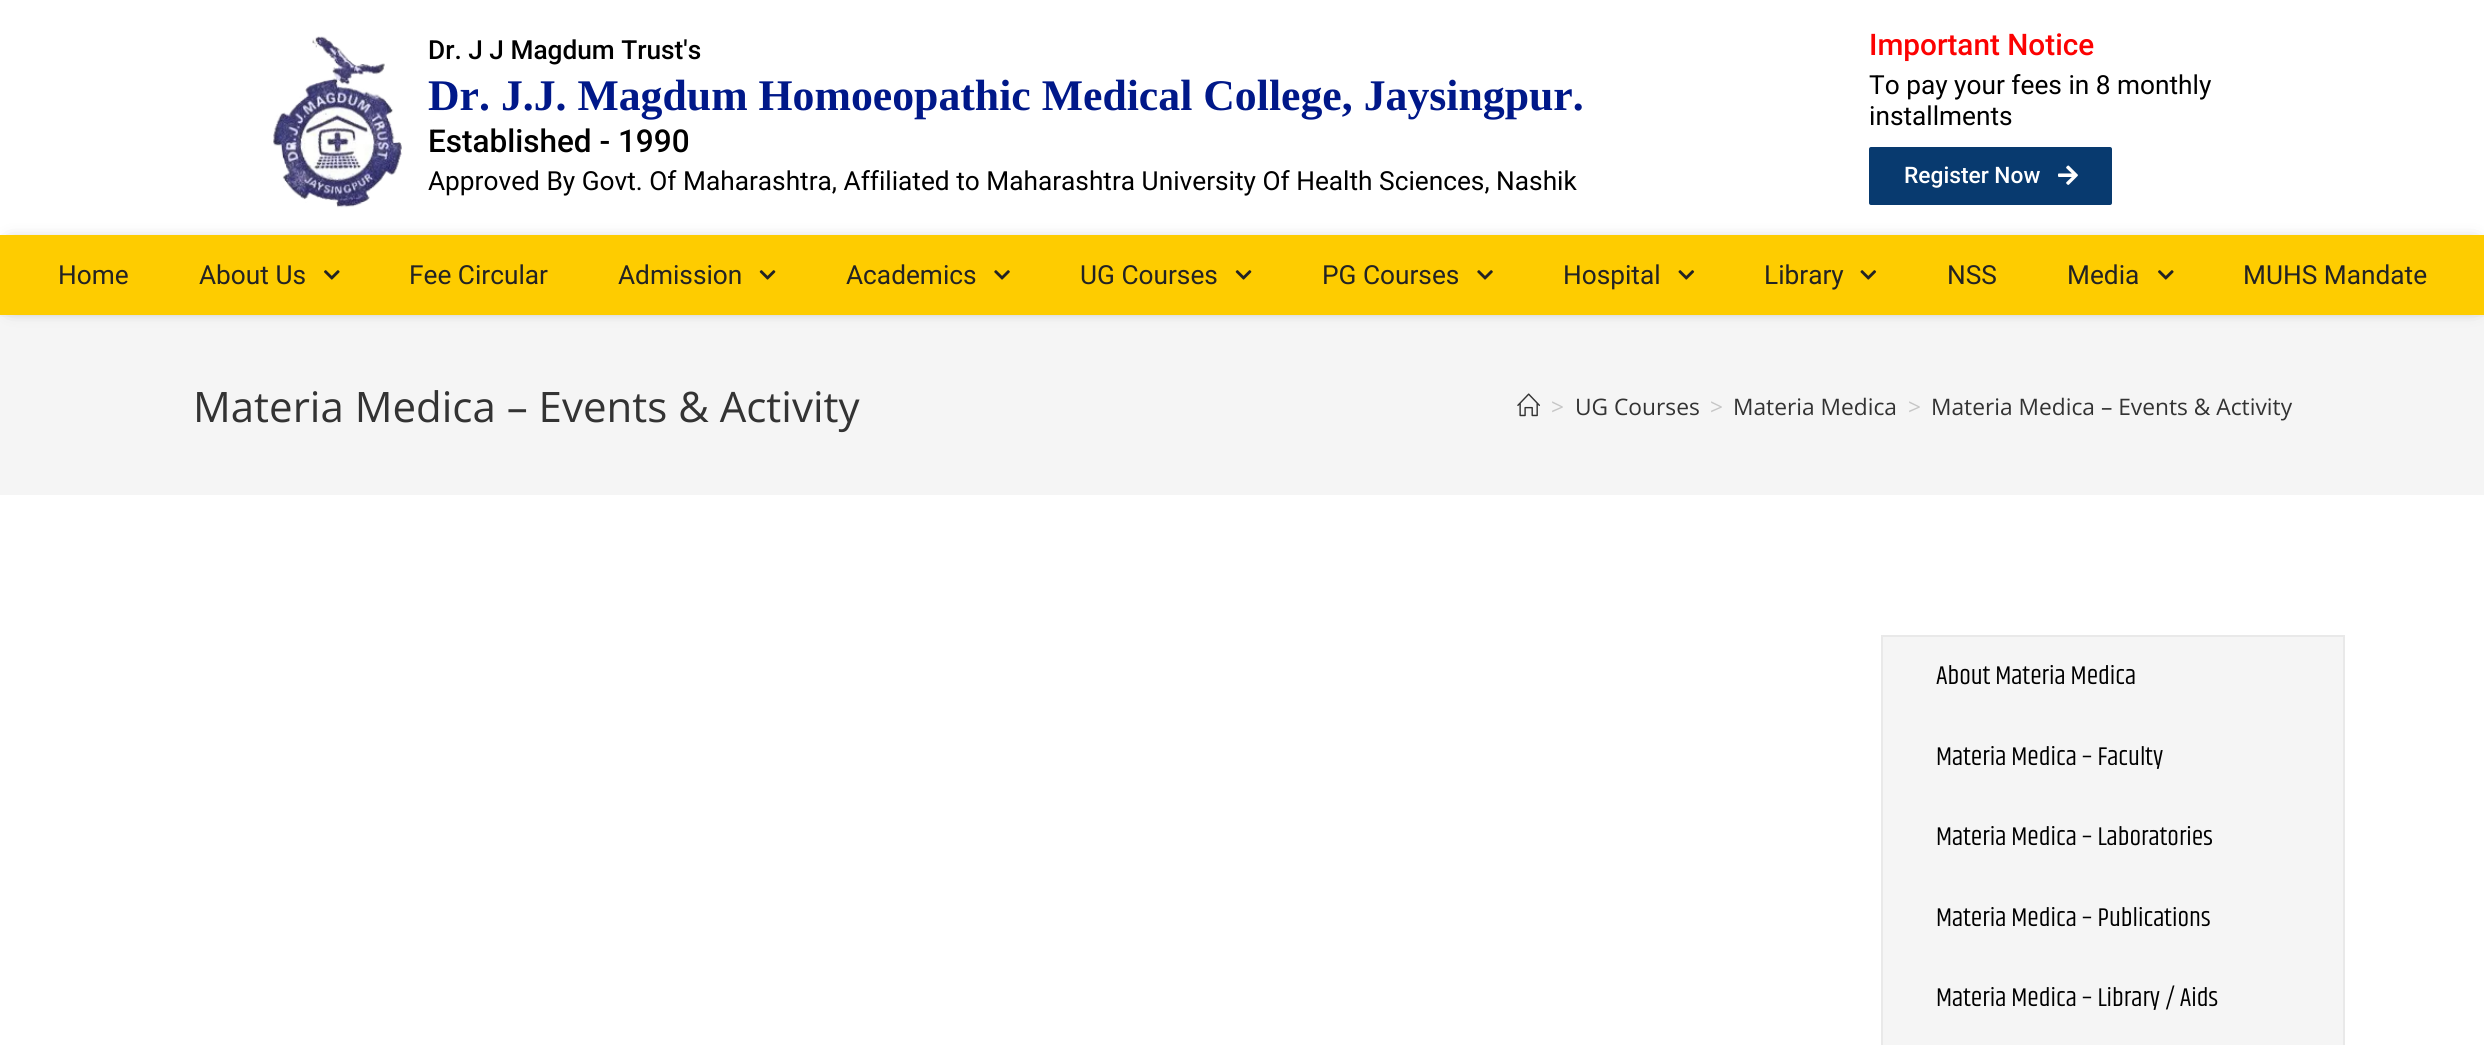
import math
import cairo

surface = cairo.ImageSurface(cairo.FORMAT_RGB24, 2484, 1045)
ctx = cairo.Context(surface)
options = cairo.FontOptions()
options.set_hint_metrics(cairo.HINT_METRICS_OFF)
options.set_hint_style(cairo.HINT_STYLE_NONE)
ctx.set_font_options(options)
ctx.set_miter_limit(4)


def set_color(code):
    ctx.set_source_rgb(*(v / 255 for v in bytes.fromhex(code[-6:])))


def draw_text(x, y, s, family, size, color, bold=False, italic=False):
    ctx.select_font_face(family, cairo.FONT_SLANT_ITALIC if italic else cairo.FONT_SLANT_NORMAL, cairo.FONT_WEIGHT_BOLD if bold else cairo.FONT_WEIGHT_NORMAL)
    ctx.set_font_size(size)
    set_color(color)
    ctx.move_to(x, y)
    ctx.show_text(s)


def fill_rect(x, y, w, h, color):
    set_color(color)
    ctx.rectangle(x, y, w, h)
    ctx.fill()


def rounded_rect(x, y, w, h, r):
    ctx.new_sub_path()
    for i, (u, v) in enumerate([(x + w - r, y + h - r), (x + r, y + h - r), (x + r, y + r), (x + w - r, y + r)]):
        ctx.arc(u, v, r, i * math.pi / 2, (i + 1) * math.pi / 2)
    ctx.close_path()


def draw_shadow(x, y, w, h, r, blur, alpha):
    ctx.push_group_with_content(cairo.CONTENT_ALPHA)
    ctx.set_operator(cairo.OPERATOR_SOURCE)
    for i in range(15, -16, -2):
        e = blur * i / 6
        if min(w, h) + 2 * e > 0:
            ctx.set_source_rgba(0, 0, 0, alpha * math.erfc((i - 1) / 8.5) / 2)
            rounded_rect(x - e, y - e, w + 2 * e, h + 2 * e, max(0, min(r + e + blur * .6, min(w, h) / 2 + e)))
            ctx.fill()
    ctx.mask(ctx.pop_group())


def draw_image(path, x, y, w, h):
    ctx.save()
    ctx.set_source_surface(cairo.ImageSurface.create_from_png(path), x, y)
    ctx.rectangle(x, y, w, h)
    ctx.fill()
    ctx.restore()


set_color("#ffffff")
ctx.paint()
fill_rect(0, 315, 2484, 2, "#f1f1f1")
draw_image("assets/img1.png", 273, 36, 129, 172)
draw_text(428, 59, "Dr. J J Magdum Trust's", "Roboto Medium", 26.25, "#000000")
draw_text(428, 110, "Dr. J.J. Magdum Homoeopathic Medical College, Jaysingpur.", "Liberation Serif", 43.75, "#001889", bold=True)
draw_text(428, 152, "Established - 1990", "Roboto Medium", 31.5, "#000000")
draw_text(428, 190, "Approved By Govt. Of Maharashtra, Affiliated to Maharashtra University Of Health Sciences, Nashik", "Roboto", 26.25, "#000000")
draw_text(1869, 55, "Important Notice", "Roboto Medium", 29.75, "#fc0202")
draw_text(1869, 94, "To pay your fees in 8 monthly", "Roboto", 26.25, "#000000")
draw_text(1869, 125, "installments", "Roboto", 26.25, "#000000")
set_color("#083a6f")
rounded_rect(1869, 147, 243, 58, 2)
ctx.fill()
draw_text(1904, 183, "Register Now", "Roboto Medium", 22.75, "#ffffff")
draw_image("assets/img2.png", 2058, 165, 20, 20)
fill_rect(0, 317, 2484, 178, "#f5f5f5")
set_color("#000000")
draw_shadow(11, 245, 2464, 60, 0, 9, 0.5)
fill_rect(0, 235, 2484, 80, "#fecc00")
draw_text(58, 284, "Home", "Roboto", 26.25, "#232323")
draw_text(199, 284, "About Us", "Roboto", 26.25, "#232323")
draw_image("assets/img3.png", 324, 270, 16, 10)
draw_text(409, 284, "Fee Circular", "Roboto", 26.25, "#232323")
draw_text(618, 284, "Admission", "Roboto", 26.25, "#232323")
draw_image("assets/img4.png", 759, 270, 17, 10)
draw_text(846, 284, "Academics", "Roboto", 26.25, "#232323")
draw_image("assets/img5.png", 994, 270, 16, 10)
draw_text(1080, 284, "UG Courses", "Roboto", 26.25, "#232323")
draw_image("assets/img4.png", 1235, 270, 17, 10)
draw_text(1322, 284, "PG Courses", "Roboto", 26.25, "#232323")
draw_image("assets/img5.png", 1477, 270, 16, 10)
draw_text(1563, 284, "Hospital", "Roboto", 26.25, "#232323")
draw_image("assets/img6.png", 1678, 270, 17, 10)
draw_text(1764, 284, "Library", "Roboto", 26.25, "#232323")
draw_image("assets/img6.png", 1860, 270, 17, 10)
draw_text(1947, 284, "NSS", "Roboto", 26.25, "#232323")
draw_text(2067, 284, "Media", "Roboto", 26.25, "#232323")
draw_image("assets/img3.png", 2158, 270, 16, 10)
draw_text(2243, 284, "MUHS Mandate", "Roboto", 26.25, "#232323")
draw_text(193, 422, "Materia Medica – Events & Activity", "Open Sans", 42, "#333333")
draw_image("assets/img7.png", 1517, 393, 23, 24)
draw_text(1551, 415, ">", "Open Sans", 22.75, "#c6c6c6")
draw_text(1575, 415, "UG Courses", "Open Sans", 22.75, "#333333")
draw_text(1710, 415, ">", "Open Sans", 22.75, "#c6c6c6")
draw_text(1733, 415, "Materia Medica", "Open Sans", 22.75, "#333333")
draw_text(1908, 415, ">", "Open Sans", 22.75, "#c6c6c6")
draw_text(1931, 415, "Materia Medica – Events & Activity", "Open Sans", 22.75, "#333333")
set_color("#f5f5f5")
ctx.rectangle(1882, 636, 462, 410)
ctx.fill_preserve()
set_color("#e9e9e9")
ctx.stroke()
draw_text(1936, 684, "About Materia Medica", "Khand", 26.25, "#000000")
draw_text(1936, 765, "Materia Medica – Faculty", "Khand", 26.25, "#000000")
draw_text(1936, 845, "Materia Medica – Laboratories", "Khand", 26.25, "#000000")
draw_text(1936, 926, "Materia Medica – Publications", "Khand", 26.25, "#000000")
draw_text(1936, 1006, "Materia Medica – Library / Aids", "Khand", 26.25, "#000000")
surface.write_to_png("output.png")
